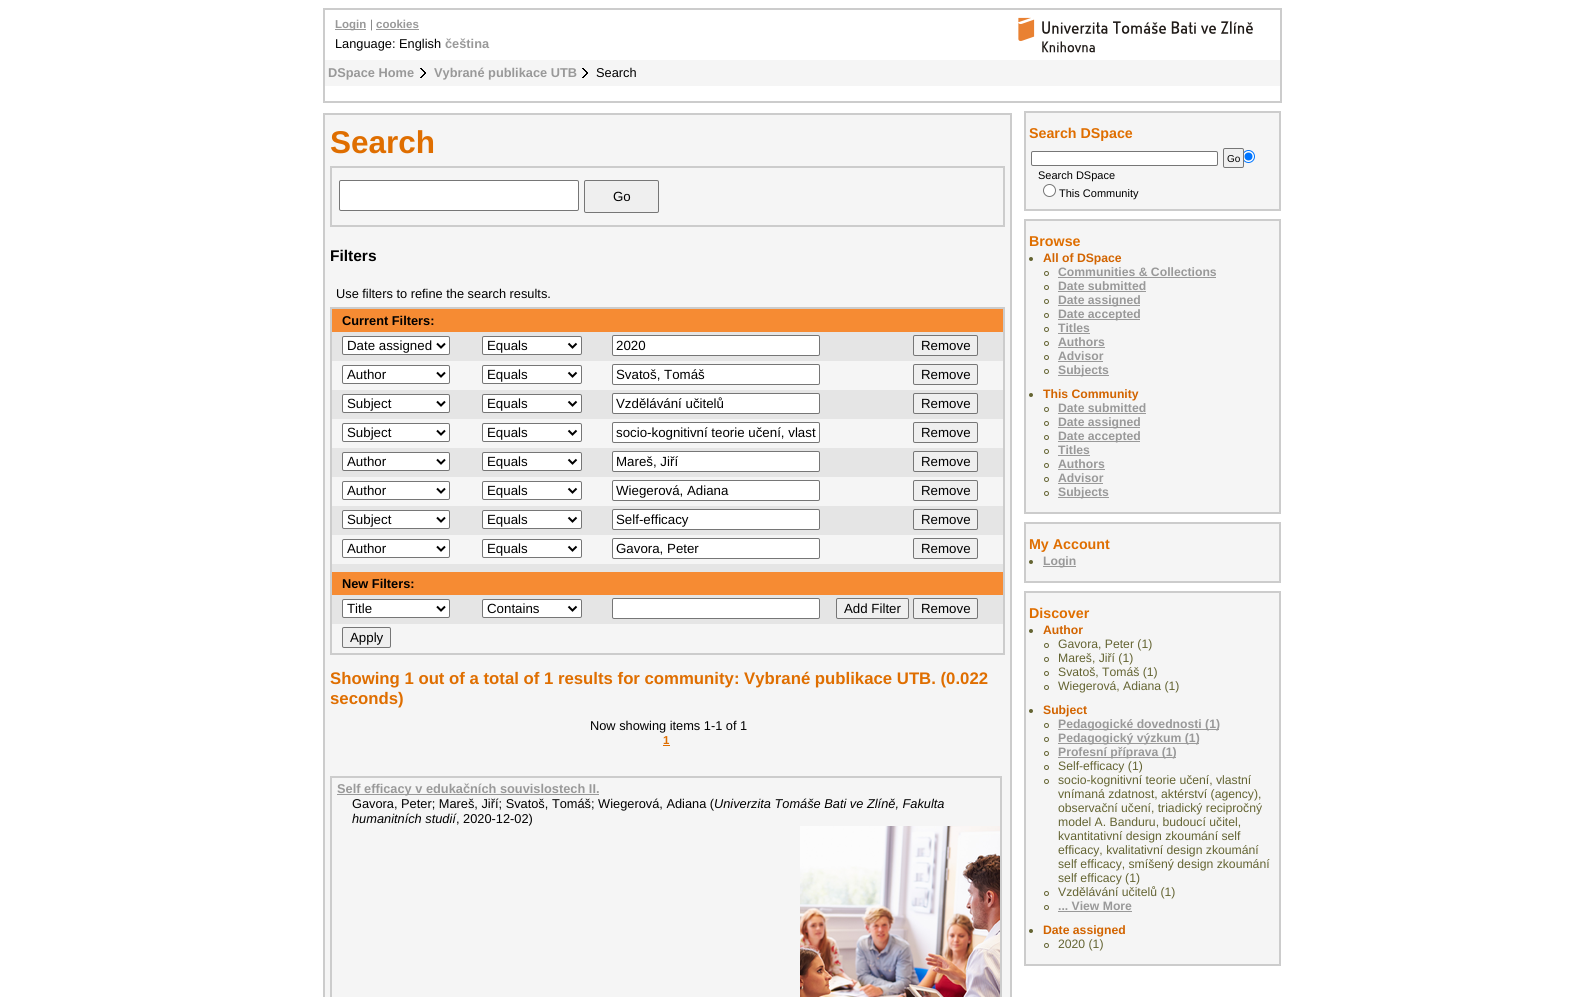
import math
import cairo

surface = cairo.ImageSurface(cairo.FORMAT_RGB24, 1596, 997)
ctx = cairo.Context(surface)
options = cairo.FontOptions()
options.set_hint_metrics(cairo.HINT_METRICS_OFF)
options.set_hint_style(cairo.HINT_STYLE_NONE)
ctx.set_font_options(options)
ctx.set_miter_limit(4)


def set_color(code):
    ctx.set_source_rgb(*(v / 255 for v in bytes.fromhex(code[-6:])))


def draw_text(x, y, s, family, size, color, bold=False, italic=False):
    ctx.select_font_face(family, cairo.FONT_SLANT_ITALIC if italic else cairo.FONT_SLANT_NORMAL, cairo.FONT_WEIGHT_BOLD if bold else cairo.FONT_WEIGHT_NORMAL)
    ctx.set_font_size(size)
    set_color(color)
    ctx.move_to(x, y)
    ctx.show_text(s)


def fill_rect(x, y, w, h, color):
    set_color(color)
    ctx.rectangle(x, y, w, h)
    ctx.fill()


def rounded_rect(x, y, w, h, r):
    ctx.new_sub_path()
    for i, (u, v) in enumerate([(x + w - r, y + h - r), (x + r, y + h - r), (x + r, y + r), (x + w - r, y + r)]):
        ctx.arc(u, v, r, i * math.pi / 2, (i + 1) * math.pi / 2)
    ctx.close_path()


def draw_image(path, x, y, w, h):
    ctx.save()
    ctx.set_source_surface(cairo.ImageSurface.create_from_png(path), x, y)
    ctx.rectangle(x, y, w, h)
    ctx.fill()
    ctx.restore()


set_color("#ffffff")
ctx.paint()
ctx.rectangle(324, 9, 957, 93)
set_color("#cccccc")
ctx.stroke()
fill_rect(335, 29, 31, 1, "#999999")
draw_text(335, 28, "Login", "Liberation Sans", 11.5, "#999999", bold=True)
draw_text(370, 28, "|", "Liberation Sans", 11.5, "#808080")
draw_text(376, 28, "cookies", "Liberation Sans", 11.5, "#999999", bold=True)
fill_rect(376, 29, 43, 1, "#999999")
draw_image("assets/img1.png", 1018, 17, 235, 36)
draw_text(335, 48, "Language: English", "Liberation Sans", 12.8, "#000000")
draw_text(445, 48, "čeština", "Liberation Sans", 12.8, "#999999", bold=True)
fill_rect(325, 60, 955, 26, "#f5f5f5")
draw_text(328, 77, "DSpace Home", "Liberation Sans", 12.8, "#999999", bold=True)
draw_image("assets/img2.png", 420, 68, 6, 10)
draw_text(434, 77, "Vybrané publikace UTB", "Liberation Sans", 12.8, "#999999", bold=True)
draw_image("assets/img2.png", 582, 68, 6, 10)
draw_text(596, 77, "Search", "Liberation Sans", 12.8, "#000000")
set_color("#f5f5f5")
ctx.rectangle(324, 114, 687, 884)
ctx.fill_preserve()
set_color("#cccccc")
ctx.stroke()
draw_text(330, 153, "Search", "Liberation Sans", 31.5, "#df6e00", bold=True)
ctx.rectangle(331, 167, 673, 59)
set_color("#cccccc")
ctx.stroke()
set_color("#ffffff")
rounded_rect(339.5, 180.5, 239, 30, 1.5)
ctx.fill_preserve()
set_color("#767676")
ctx.set_line_width(1)
ctx.stroke()
set_color("#efefef")
rounded_rect(584.5, 180.5, 74, 32, 1.5)
ctx.fill_preserve()
set_color("#767676")
ctx.stroke()
draw_text(613, 201, "Go", "Liberation Sans", 13.3, "#000000")
draw_text(330, 261, "Filters", "Liberation Sans", 15.5, "#000000", bold=True)
draw_text(336, 298, "Use filters to refine the search results.", "Liberation Sans", 12.8, "#000000")
ctx.rectangle(331, 308, 673, 346)
set_color("#cccccc")
ctx.set_line_width(2)
ctx.stroke()
fill_rect(332, 309, 671, 23, "#f68b33")
draw_text(342, 325, "Current Filters:", "Liberation Sans", 12.8, "#000000", bold=True)
fill_rect(332, 332, 671, 29, "#e5e5e5")
set_color("#ffffff")
rounded_rect(342.5, 336.5, 107, 18, 1.5)
ctx.fill_preserve()
set_color("#767676")
ctx.set_line_width(1)
ctx.stroke()
ctx.new_path()
ctx.move_to(437, 343.5)
ctx.line_to(441, 347.5)
ctx.line_to(445, 343.5)
set_color("#000000")
ctx.set_line_width(2)
ctx.stroke()
draw_text(347, 350, "Date assigned", "Liberation Sans", 13.3, "#000000")
set_color("#ffffff")
rounded_rect(482.5, 336.5, 99, 18, 1.5)
ctx.fill_preserve()
set_color("#767676")
ctx.set_line_width(1)
ctx.stroke()
ctx.new_path()
ctx.move_to(568.5, 343.5)
ctx.line_to(572.5, 347.5)
ctx.line_to(576.5, 343.5)
set_color("#000000")
ctx.set_line_width(2)
ctx.stroke()
draw_text(487, 350, "Equals", "Liberation Sans", 13.3, "#000000")
set_color("#ffffff")
rounded_rect(612.5, 335.5, 207, 20, 1.5)
ctx.fill_preserve()
set_color("#767676")
ctx.set_line_width(1)
ctx.stroke()
draw_text(616, 350, "2020", "Liberation Sans", 13.3, "#000000")
set_color("#efefef")
rounded_rect(913.5, 335.5, 64, 20, 1.5)
ctx.fill_preserve()
set_color("#767676")
ctx.stroke()
draw_text(921, 350, "Remove", "Liberation Sans", 13.3, "#000000")
set_color("#ffffff")
rounded_rect(342.5, 365.5, 107, 18, 1.5)
ctx.fill_preserve()
set_color("#767676")
ctx.stroke()
ctx.new_path()
ctx.move_to(437, 372.5)
ctx.line_to(441, 376.5)
ctx.line_to(445, 372.5)
set_color("#000000")
ctx.set_line_width(2)
ctx.stroke()
draw_text(347, 379, "Author", "Liberation Sans", 13.3, "#000000")
set_color("#ffffff")
rounded_rect(482.5, 365.5, 99, 18, 1.5)
ctx.fill_preserve()
set_color("#767676")
ctx.set_line_width(1)
ctx.stroke()
ctx.new_path()
ctx.move_to(568.5, 372.5)
ctx.line_to(572.5, 376.5)
ctx.line_to(576.5, 372.5)
set_color("#000000")
ctx.set_line_width(2)
ctx.stroke()
draw_text(487, 379, "Equals", "Liberation Sans", 13.3, "#000000")
set_color("#ffffff")
rounded_rect(612.5, 364.5, 207, 20, 1.5)
ctx.fill_preserve()
set_color("#767676")
ctx.set_line_width(1)
ctx.stroke()
draw_text(616, 379, "Svatoš, Tomáš", "Liberation Sans", 13.3, "#000000")
set_color("#efefef")
rounded_rect(913.5, 364.5, 64, 20, 1.5)
ctx.fill_preserve()
set_color("#767676")
ctx.stroke()
draw_text(921, 379, "Remove", "Liberation Sans", 13.3, "#000000")
fill_rect(332, 390, 671, 29, "#e5e5e5")
set_color("#ffffff")
rounded_rect(342.5, 394.5, 107, 18, 1.5)
ctx.fill_preserve()
set_color("#767676")
ctx.stroke()
ctx.new_path()
ctx.move_to(437, 401.5)
ctx.line_to(441, 405.5)
ctx.line_to(445, 401.5)
set_color("#000000")
ctx.set_line_width(2)
ctx.stroke()
draw_text(347, 408, "Subject", "Liberation Sans", 13.3, "#000000")
set_color("#ffffff")
rounded_rect(482.5, 394.5, 99, 18, 1.5)
ctx.fill_preserve()
set_color("#767676")
ctx.set_line_width(1)
ctx.stroke()
ctx.new_path()
ctx.move_to(568.5, 401.5)
ctx.line_to(572.5, 405.5)
ctx.line_to(576.5, 401.5)
set_color("#000000")
ctx.set_line_width(2)
ctx.stroke()
draw_text(487, 408, "Equals", "Liberation Sans", 13.3, "#000000")
set_color("#ffffff")
rounded_rect(612.5, 393.5, 207, 20, 1.5)
ctx.fill_preserve()
set_color("#767676")
ctx.set_line_width(1)
ctx.stroke()
draw_text(616, 408, "Vzdělávání učitelů", "Liberation Sans", 13.3, "#000000")
set_color("#efefef")
rounded_rect(913.5, 393.5, 64, 20, 1.5)
ctx.fill_preserve()
set_color("#767676")
ctx.stroke()
draw_text(921, 408, "Remove", "Liberation Sans", 13.3, "#000000")
set_color("#ffffff")
rounded_rect(342.5, 423.5, 107, 18, 1.5)
ctx.fill_preserve()
set_color("#767676")
ctx.stroke()
ctx.new_path()
ctx.move_to(437, 430.5)
ctx.line_to(441, 434.5)
ctx.line_to(445, 430.5)
set_color("#000000")
ctx.set_line_width(2)
ctx.stroke()
draw_text(347, 437, "Subject", "Liberation Sans", 13.3, "#000000")
set_color("#ffffff")
rounded_rect(482.5, 423.5, 99, 18, 1.5)
ctx.fill_preserve()
set_color("#767676")
ctx.set_line_width(1)
ctx.stroke()
ctx.new_path()
ctx.move_to(568.5, 430.5)
ctx.line_to(572.5, 434.5)
ctx.line_to(576.5, 430.5)
set_color("#000000")
ctx.set_line_width(2)
ctx.stroke()
draw_text(487, 437, "Equals", "Liberation Sans", 13.3, "#000000")
set_color("#ffffff")
rounded_rect(612.5, 422.5, 207, 20, 1.5)
ctx.fill_preserve()
set_color("#767676")
ctx.set_line_width(1)
ctx.stroke()
draw_text(616, 437, "socio-kognitivní teorie učení, vlast", "Liberation Sans", 13.3, "#000000")
set_color("#efefef")
rounded_rect(913.5, 422.5, 64, 20, 1.5)
ctx.fill_preserve()
set_color("#767676")
ctx.stroke()
draw_text(921, 437, "Remove", "Liberation Sans", 13.3, "#000000")
fill_rect(332, 448, 671, 29, "#e5e5e5")
set_color("#ffffff")
rounded_rect(342.5, 452.5, 107, 18, 1.5)
ctx.fill_preserve()
set_color("#767676")
ctx.stroke()
ctx.new_path()
ctx.move_to(437, 459.5)
ctx.line_to(441, 463.5)
ctx.line_to(445, 459.5)
set_color("#000000")
ctx.set_line_width(2)
ctx.stroke()
draw_text(347, 466, "Author", "Liberation Sans", 13.3, "#000000")
set_color("#ffffff")
rounded_rect(482.5, 452.5, 99, 18, 1.5)
ctx.fill_preserve()
set_color("#767676")
ctx.set_line_width(1)
ctx.stroke()
ctx.new_path()
ctx.move_to(568.5, 459.5)
ctx.line_to(572.5, 463.5)
ctx.line_to(576.5, 459.5)
set_color("#000000")
ctx.set_line_width(2)
ctx.stroke()
draw_text(487, 466, "Equals", "Liberation Sans", 13.3, "#000000")
set_color("#ffffff")
rounded_rect(612.5, 451.5, 207, 20, 1.5)
ctx.fill_preserve()
set_color("#767676")
ctx.set_line_width(1)
ctx.stroke()
draw_text(616, 466, "Mareš, Jiří", "Liberation Sans", 13.3, "#000000")
set_color("#efefef")
rounded_rect(913.5, 451.5, 64, 20, 1.5)
ctx.fill_preserve()
set_color("#767676")
ctx.stroke()
draw_text(921, 466, "Remove", "Liberation Sans", 13.3, "#000000")
set_color("#ffffff")
rounded_rect(342.5, 481.5, 107, 18, 1.5)
ctx.fill_preserve()
set_color("#767676")
ctx.stroke()
ctx.new_path()
ctx.move_to(437, 488.5)
ctx.line_to(441, 492.5)
ctx.line_to(445, 488.5)
set_color("#000000")
ctx.set_line_width(2)
ctx.stroke()
draw_text(347, 495, "Author", "Liberation Sans", 13.3, "#000000")
set_color("#ffffff")
rounded_rect(482.5, 481.5, 99, 18, 1.5)
ctx.fill_preserve()
set_color("#767676")
ctx.set_line_width(1)
ctx.stroke()
ctx.new_path()
ctx.move_to(568.5, 488.5)
ctx.line_to(572.5, 492.5)
ctx.line_to(576.5, 488.5)
set_color("#000000")
ctx.set_line_width(2)
ctx.stroke()
draw_text(487, 495, "Equals", "Liberation Sans", 13.3, "#000000")
set_color("#ffffff")
rounded_rect(612.5, 480.5, 207, 20, 1.5)
ctx.fill_preserve()
set_color("#767676")
ctx.set_line_width(1)
ctx.stroke()
draw_text(616, 495, "Wiegerová, Adiana", "Liberation Sans", 13.3, "#000000")
set_color("#efefef")
rounded_rect(913.5, 480.5, 64, 20, 1.5)
ctx.fill_preserve()
set_color("#767676")
ctx.stroke()
draw_text(921, 495, "Remove", "Liberation Sans", 13.3, "#000000")
fill_rect(332, 506, 671, 29, "#e5e5e5")
set_color("#ffffff")
rounded_rect(342.5, 510.5, 107, 18, 1.5)
ctx.fill_preserve()
set_color("#767676")
ctx.stroke()
ctx.new_path()
ctx.move_to(437, 517.5)
ctx.line_to(441, 521.5)
ctx.line_to(445, 517.5)
set_color("#000000")
ctx.set_line_width(2)
ctx.stroke()
draw_text(347, 524, "Subject", "Liberation Sans", 13.3, "#000000")
set_color("#ffffff")
rounded_rect(482.5, 510.5, 99, 18, 1.5)
ctx.fill_preserve()
set_color("#767676")
ctx.set_line_width(1)
ctx.stroke()
ctx.new_path()
ctx.move_to(568.5, 517.5)
ctx.line_to(572.5, 521.5)
ctx.line_to(576.5, 517.5)
set_color("#000000")
ctx.set_line_width(2)
ctx.stroke()
draw_text(487, 524, "Equals", "Liberation Sans", 13.3, "#000000")
set_color("#ffffff")
rounded_rect(612.5, 509.5, 207, 20, 1.5)
ctx.fill_preserve()
set_color("#767676")
ctx.set_line_width(1)
ctx.stroke()
draw_text(616, 524, "Self-efficacy", "Liberation Sans", 13.3, "#000000")
set_color("#efefef")
rounded_rect(913.5, 509.5, 64, 20, 1.5)
ctx.fill_preserve()
set_color("#767676")
ctx.stroke()
draw_text(921, 524, "Remove", "Liberation Sans", 13.3, "#000000")
set_color("#ffffff")
rounded_rect(342.5, 539.5, 107, 18, 1.5)
ctx.fill_preserve()
set_color("#767676")
ctx.stroke()
ctx.new_path()
ctx.move_to(437, 546.5)
ctx.line_to(441, 550.5)
ctx.line_to(445, 546.5)
set_color("#000000")
ctx.set_line_width(2)
ctx.stroke()
draw_text(347, 553, "Author", "Liberation Sans", 13.3, "#000000")
set_color("#ffffff")
rounded_rect(482.5, 539.5, 99, 18, 1.5)
ctx.fill_preserve()
set_color("#767676")
ctx.set_line_width(1)
ctx.stroke()
ctx.new_path()
ctx.move_to(568.5, 546.5)
ctx.line_to(572.5, 550.5)
ctx.line_to(576.5, 546.5)
set_color("#000000")
ctx.set_line_width(2)
ctx.stroke()
draw_text(487, 553, "Equals", "Liberation Sans", 13.3, "#000000")
set_color("#ffffff")
rounded_rect(612.5, 538.5, 207, 20, 1.5)
ctx.fill_preserve()
set_color("#767676")
ctx.set_line_width(1)
ctx.stroke()
draw_text(616, 553, "Gavora, Peter", "Liberation Sans", 13.3, "#000000")
set_color("#efefef")
rounded_rect(913.5, 538.5, 64, 20, 1.5)
ctx.fill_preserve()
set_color("#767676")
ctx.stroke()
draw_text(921, 553, "Remove", "Liberation Sans", 13.3, "#000000")
fill_rect(332, 564, 671, 8, "#e5e5e5")
fill_rect(332, 572, 671, 23, "#f68b33")
draw_text(342, 588, "New Filters:", "Liberation Sans", 12.8, "#000000", bold=True)
fill_rect(332, 595, 671, 29, "#e5e5e5")
set_color("#ffffff")
rounded_rect(342.5, 599.5, 107, 18, 1.5)
ctx.fill_preserve()
set_color("#767676")
ctx.stroke()
ctx.new_path()
ctx.move_to(437, 606.5)
ctx.line_to(441, 610.5)
ctx.line_to(445, 606.5)
set_color("#000000")
ctx.set_line_width(2)
ctx.stroke()
draw_text(347, 613, "Title", "Liberation Sans", 13.3, "#000000")
set_color("#ffffff")
rounded_rect(482.5, 599.5, 99, 18, 1.5)
ctx.fill_preserve()
set_color("#767676")
ctx.set_line_width(1)
ctx.stroke()
ctx.new_path()
ctx.move_to(568.5, 606.5)
ctx.line_to(572.5, 610.5)
ctx.line_to(576.5, 606.5)
set_color("#000000")
ctx.set_line_width(2)
ctx.stroke()
draw_text(487, 613, "Contains", "Liberation Sans", 13.3, "#000000")
set_color("#ffffff")
rounded_rect(612.5, 598.5, 207, 20, 1.5)
ctx.fill_preserve()
set_color("#767676")
ctx.set_line_width(1)
ctx.stroke()
set_color("#efefef")
rounded_rect(836.5, 598.5, 72, 20, 1.5)
ctx.fill_preserve()
set_color("#767676")
ctx.stroke()
draw_text(844, 613, "Add Filter", "Liberation Sans", 13.3, "#000000")
set_color("#efefef")
rounded_rect(913.5, 598.5, 64, 20, 1.5)
ctx.fill_preserve()
set_color("#767676")
ctx.stroke()
draw_text(921, 613, "Remove", "Liberation Sans", 13.3, "#000000")
set_color("#efefef")
rounded_rect(342.5, 627.5, 48, 20, 1.5)
ctx.fill_preserve()
set_color("#767676")
ctx.stroke()
draw_text(350, 642, "Apply", "Liberation Sans", 13.3, "#000000")
draw_text(330, 684, "Showing 1 out of a total of 1 results for community: Vybrané publikace UTB. (0.022", "Liberation Sans", 16.75, "#df6e00", bold=True)
draw_text(330, 704, "seconds)", "Liberation Sans", 16.75, "#df6e00", bold=True)
draw_text(590, 730, "Now showing items 1-1 of 1", "Liberation Sans", 12.8, "#000000")
draw_text(663, 744, "1", "Liberation Sans", 11.5, "#df6e00", bold=True)
fill_rect(663, 745, 7, 1, "#df6e00")
ctx.rectangle(331, 777, 670, 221)
set_color("#cccccc")
ctx.set_line_width(2)
ctx.stroke()
fill_rect(337, 794, 262, 1, "#999999")
draw_text(337, 793, "Self efficacy v edukačních souvislostech II.", "Liberation Sans", 12.8, "#999999", bold=True)
draw_text(352, 808, "Gavora, Peter; Mareš, Jiří; Svatoš, Tomáš; Wiegerová, Adiana (", "Liberation Sans", 12.8, "#000000")
draw_text(714, 808, "Univerzita Tomáše Bati ve Zlíně, Fakulta", "Liberation Sans", 12.8, "#000000", italic=True)
draw_text(352, 823, "humanitních studií", "Liberation Sans", 12.8, "#000000", italic=True)
draw_text(456, 823, ", 2020-12-02)", "Liberation Sans", 12.8, "#000000")
draw_image("assets/img3.png", 800, 826, 200, 171)
set_color("#f5f5f5")
ctx.rectangle(1025, 112, 255, 98)
ctx.fill_preserve()
set_color("#cccccc")
ctx.stroke()
draw_text(1029, 138, "Search DSpace", "Liberation Sans", 14.25, "#df6e00", bold=True)
set_color("#ffffff")
rounded_rect(1031.5, 151.5, 186, 14, 1.5)
ctx.fill_preserve()
set_color("#767676")
ctx.set_line_width(1)
ctx.stroke()
set_color("#ffffff")
ctx.arc(1248.5, 156.5, 6, 0, 2 * math.pi)
ctx.fill_preserve()
set_color("#0075ff")
ctx.stroke()
set_color("#efefef")
rounded_rect(1223.5, 148.5, 20, 19, 1.5)
ctx.fill_preserve()
set_color("#767676")
ctx.stroke()
draw_text(1227, 162, "Go", "Liberation Sans", 10, "#000000")
set_color("#0075ff")
ctx.new_path()
ctx.arc(1248.5, 156.5, 4, 0, 2 * math.pi)
ctx.fill()
draw_text(1038, 179, "Search DSpace", "Liberation Sans", 11, "#000000")
set_color("#ffffff")
ctx.new_path()
ctx.arc(1049.5, 190.5, 6, 0, 2 * math.pi)
ctx.fill_preserve()
set_color("#767676")
ctx.stroke()
draw_text(1059, 197, "This Community", "Liberation Sans", 11, "#000000")
set_color("#f5f5f5")
ctx.rectangle(1025, 220, 255, 293)
ctx.fill_preserve()
set_color("#cccccc")
ctx.set_line_width(2)
ctx.stroke()
draw_text(1029, 246, "Browse", "Liberation Sans", 14.25, "#df6e00", bold=True)
set_color("#646432")
ctx.new_path()
ctx.arc(1031, 259, 2, 0, 2 * math.pi)
ctx.fill()
draw_text(1043, 262, "All of DSpace", "Liberation Sans", 12.2, "#d26400", bold=True)
ctx.new_path()
ctx.arc(1046.5, 273.5, 2, 0, 2 * math.pi)
set_color("#646432")
ctx.set_line_width(1)
ctx.stroke()
draw_text(1058, 276, "Communities & Collections", "Liberation Sans", 12.2, "#999999", bold=True)
fill_rect(1058, 277, 158, 1, "#999999")
ctx.new_path()
ctx.arc(1046.5, 287.5, 2, 0, 2 * math.pi)
set_color("#646432")
ctx.stroke()
draw_text(1058, 290, "Date submitted", "Liberation Sans", 12.2, "#999999", bold=True)
fill_rect(1058, 291, 88, 1, "#999999")
ctx.new_path()
ctx.arc(1046.5, 301.5, 2, 0, 2 * math.pi)
set_color("#646432")
ctx.stroke()
fill_rect(1058, 305, 82, 1, "#999999")
draw_text(1058, 304, "Date assigned", "Liberation Sans", 12.2, "#999999", bold=True)
ctx.new_path()
ctx.arc(1046.5, 315.5, 2, 0, 2 * math.pi)
set_color("#646432")
ctx.stroke()
fill_rect(1058, 319, 82, 1, "#999999")
draw_text(1058, 318, "Date accepted", "Liberation Sans", 12.2, "#999999", bold=True)
ctx.new_path()
ctx.arc(1046.5, 329.5, 2, 0, 2 * math.pi)
set_color("#646432")
ctx.stroke()
draw_text(1058, 332, "Titles", "Liberation Sans", 12.2, "#999999", bold=True)
fill_rect(1058, 333, 32, 1, "#999999")
ctx.new_path()
ctx.arc(1046.5, 343.5, 2, 0, 2 * math.pi)
set_color("#646432")
ctx.stroke()
draw_text(1058, 346, "Authors", "Liberation Sans", 12.2, "#999999", bold=True)
fill_rect(1058, 347, 47, 1, "#999999")
ctx.new_path()
ctx.arc(1046.5, 357.5, 2, 0, 2 * math.pi)
set_color("#646432")
ctx.stroke()
draw_text(1058, 360, "Advisor", "Liberation Sans", 12.2, "#999999", bold=True)
fill_rect(1058, 361, 45, 1, "#999999")
ctx.new_path()
ctx.arc(1046.5, 371.5, 2, 0, 2 * math.pi)
set_color("#646432")
ctx.stroke()
fill_rect(1058, 375, 51, 1, "#999999")
draw_text(1058, 374, "Subjects", "Liberation Sans", 12.2, "#999999", bold=True)
set_color("#646432")
ctx.new_path()
ctx.arc(1031, 395, 2, 0, 2 * math.pi)
ctx.fill()
draw_text(1043, 398, "This Community", "Liberation Sans", 12.2, "#d26400", bold=True)
ctx.new_path()
ctx.arc(1046.5, 409.5, 2, 0, 2 * math.pi)
set_color("#646432")
ctx.stroke()
draw_text(1058, 412, "Date submitted", "Liberation Sans", 12.2, "#999999", bold=True)
fill_rect(1058, 413, 88, 1, "#999999")
ctx.new_path()
ctx.arc(1046.5, 423.5, 2, 0, 2 * math.pi)
set_color("#646432")
ctx.stroke()
fill_rect(1058, 427, 82, 1, "#999999")
draw_text(1058, 426, "Date assigned", "Liberation Sans", 12.2, "#999999", bold=True)
ctx.new_path()
ctx.arc(1046.5, 437.5, 2, 0, 2 * math.pi)
set_color("#646432")
ctx.stroke()
fill_rect(1058, 441, 82, 1, "#999999")
draw_text(1058, 440, "Date accepted", "Liberation Sans", 12.2, "#999999", bold=True)
ctx.new_path()
ctx.arc(1046.5, 451.5, 2, 0, 2 * math.pi)
set_color("#646432")
ctx.stroke()
draw_text(1058, 454, "Titles", "Liberation Sans", 12.2, "#999999", bold=True)
fill_rect(1058, 455, 32, 1, "#999999")
ctx.new_path()
ctx.arc(1046.5, 465.5, 2, 0, 2 * math.pi)
set_color("#646432")
ctx.stroke()
draw_text(1058, 468, "Authors", "Liberation Sans", 12.2, "#999999", bold=True)
fill_rect(1058, 469, 47, 1, "#999999")
ctx.new_path()
ctx.arc(1046.5, 479.5, 2, 0, 2 * math.pi)
set_color("#646432")
ctx.stroke()
draw_text(1058, 482, "Advisor", "Liberation Sans", 12.2, "#999999", bold=True)
fill_rect(1058, 483, 45, 1, "#999999")
ctx.new_path()
ctx.arc(1046.5, 493.5, 2, 0, 2 * math.pi)
set_color("#646432")
ctx.stroke()
fill_rect(1058, 497, 51, 1, "#999999")
draw_text(1058, 496, "Subjects", "Liberation Sans", 12.2, "#999999", bold=True)
set_color("#f5f5f5")
ctx.rectangle(1025, 523, 255, 59)
ctx.fill_preserve()
set_color("#cccccc")
ctx.set_line_width(2)
ctx.stroke()
draw_text(1029, 549, "My Account", "Liberation Sans", 14.25, "#df6e00", bold=True)
set_color("#646432")
ctx.new_path()
ctx.arc(1031, 562, 2, 0, 2 * math.pi)
ctx.fill()
fill_rect(1043, 566, 33, 1, "#999999")
draw_text(1043, 565, "Login", "Liberation Sans", 12.2, "#999999", bold=True)
set_color("#f5f5f5")
ctx.rectangle(1025, 592, 255, 373)
ctx.fill_preserve()
set_color("#cccccc")
ctx.stroke()
draw_text(1029, 618, "Discover", "Liberation Sans", 14.25, "#df6e00", bold=True)
set_color("#646432")
ctx.new_path()
ctx.arc(1031, 631, 2, 0, 2 * math.pi)
ctx.fill()
draw_text(1043, 634, "Author", "Liberation Sans", 12.2, "#d26400", bold=True)
ctx.new_path()
ctx.arc(1046.5, 645.5, 2, 0, 2 * math.pi)
set_color("#646432")
ctx.set_line_width(1)
ctx.stroke()
draw_text(1058, 648, "Gavora, Peter (1)", "Liberation Sans", 12.2, "#646432")
ctx.new_path()
ctx.arc(1046.5, 659.5, 2, 0, 2 * math.pi)
ctx.stroke()
draw_text(1058, 662, "Mareš, Jiří (1)", "Liberation Sans", 12.2, "#646432")
ctx.new_path()
ctx.arc(1046.5, 673.5, 2, 0, 2 * math.pi)
ctx.stroke()
draw_text(1058, 676, "Svatoš, Tomáš (1)", "Liberation Sans", 12.2, "#646432")
ctx.new_path()
ctx.arc(1046.5, 687.5, 2, 0, 2 * math.pi)
ctx.stroke()
draw_text(1058, 690, "Wiegerová, Adiana (1)", "Liberation Sans", 12.2, "#646432")
ctx.new_path()
ctx.arc(1031, 711, 2, 0, 2 * math.pi)
ctx.fill()
draw_text(1043, 714, "Subject", "Liberation Sans", 12.2, "#d26400", bold=True)
ctx.new_path()
ctx.arc(1046.5, 725.5, 2, 0, 2 * math.pi)
set_color("#646432")
ctx.stroke()
fill_rect(1058, 729, 161, 1, "#999999")
draw_text(1058, 728, "Pedagogické dovednosti (1)", "Liberation Sans", 12.2, "#999999", bold=True)
ctx.new_path()
ctx.arc(1046.5, 739.5, 2, 0, 2 * math.pi)
set_color("#646432")
ctx.stroke()
fill_rect(1058, 743, 141, 1, "#999999")
draw_text(1058, 742, "Pedagogický výzkum (1)", "Liberation Sans", 12.2, "#999999", bold=True)
ctx.new_path()
ctx.arc(1046.5, 753.5, 2, 0, 2 * math.pi)
set_color("#646432")
ctx.stroke()
fill_rect(1058, 757, 118, 1, "#999999")
draw_text(1058, 756, "Profesní příprava (1)", "Liberation Sans", 12.2, "#999999", bold=True)
ctx.new_path()
ctx.arc(1046.5, 767.5, 2, 0, 2 * math.pi)
set_color("#646432")
ctx.stroke()
draw_text(1058, 770, "Self-efficacy (1)", "Liberation Sans", 12.2, "#646432")
ctx.new_path()
ctx.arc(1046.5, 781.5, 2, 0, 2 * math.pi)
ctx.stroke()
draw_text(1058, 784, "socio-kognitivní teorie učení, vlastní", "Liberation Sans", 12.2, "#646432")
draw_text(1058, 798, "vnímaná zdatnost, aktérství (agency),", "Liberation Sans", 12.2, "#646432")
draw_text(1058, 812, "observační učení, triadický recipročný", "Liberation Sans", 12.2, "#646432")
draw_text(1058, 826, "model A. Banduru, budoucí učitel,", "Liberation Sans", 12.2, "#646432")
draw_text(1058, 840, "kvantitativní design zkoumání self", "Liberation Sans", 12.2, "#646432")
draw_text(1058, 854, "efficacy, kvalitativní design zkoumání", "Liberation Sans", 12.2, "#646432")
draw_text(1058, 868, "self efficacy, smíšený design zkoumání", "Liberation Sans", 12.2, "#646432")
draw_text(1058, 882, "self efficacy (1)", "Liberation Sans", 12.2, "#646432")
ctx.new_path()
ctx.arc(1046.5, 893.5, 2, 0, 2 * math.pi)
ctx.stroke()
draw_text(1058, 896, "Vzdělávání učitelů (1)", "Liberation Sans", 12.2, "#646432")
ctx.new_path()
ctx.arc(1046.5, 907.5, 2, 0, 2 * math.pi)
ctx.stroke()
draw_text(1058, 910, "... View More", "Liberation Sans", 12.2, "#999999", bold=True)
fill_rect(1058, 911, 74, 1, "#999999")
set_color("#646432")
ctx.new_path()
ctx.arc(1031, 931, 2, 0, 2 * math.pi)
ctx.fill()
draw_text(1043, 934, "Date assigned", "Liberation Sans", 12.2, "#d26400", bold=True)
ctx.new_path()
ctx.arc(1046.5, 945.5, 2, 0, 2 * math.pi)
set_color("#646432")
ctx.stroke()
draw_text(1058, 948, "2020 (1)", "Liberation Sans", 12.2, "#646432")
surface.write_to_png("output.png")
